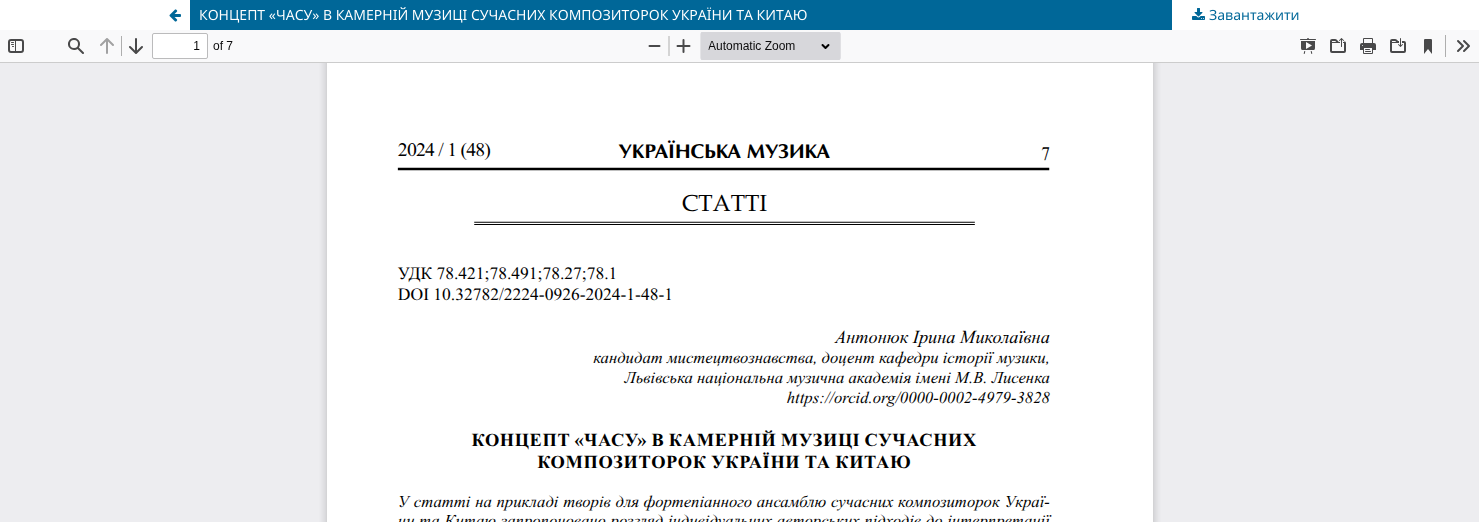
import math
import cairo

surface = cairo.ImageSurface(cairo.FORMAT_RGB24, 1479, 522)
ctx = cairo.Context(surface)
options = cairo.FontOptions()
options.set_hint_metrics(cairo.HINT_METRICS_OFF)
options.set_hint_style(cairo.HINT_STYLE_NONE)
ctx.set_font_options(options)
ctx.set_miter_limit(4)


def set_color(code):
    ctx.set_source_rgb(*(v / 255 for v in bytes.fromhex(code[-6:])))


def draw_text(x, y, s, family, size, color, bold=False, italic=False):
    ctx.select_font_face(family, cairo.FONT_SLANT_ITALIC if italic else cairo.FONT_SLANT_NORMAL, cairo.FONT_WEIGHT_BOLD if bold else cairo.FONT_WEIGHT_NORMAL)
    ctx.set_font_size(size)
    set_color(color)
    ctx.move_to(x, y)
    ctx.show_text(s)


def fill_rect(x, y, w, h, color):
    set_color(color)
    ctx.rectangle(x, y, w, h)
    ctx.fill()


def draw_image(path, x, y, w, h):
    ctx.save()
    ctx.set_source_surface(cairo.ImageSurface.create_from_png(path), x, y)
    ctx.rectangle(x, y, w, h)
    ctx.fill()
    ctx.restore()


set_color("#ffffff")
ctx.paint()
fill_rect(190, 0, 982, 30, "#006798")
draw_image("assets/img1.png", 169, 9, 12, 13)
draw_text(199, 20, "КОНЦЕПТ «ЧАСУ» В КАМЕРНІЙ МУЗИЦІ СУЧАСНИХ КОМПОЗИТОРОК УКРАЇНИ ТА КИТАЮ", "Noto Sans", 14, "#ffffff")
draw_image("assets/img2.png", 1192, 8, 13, 12)
draw_text(1209, 20, "Завантажити", "Noto Sans", 14, "#006798")
draw_image("assets/img3.png", 0, 30, 1479, 492)
surface.write_to_png("output.png")
